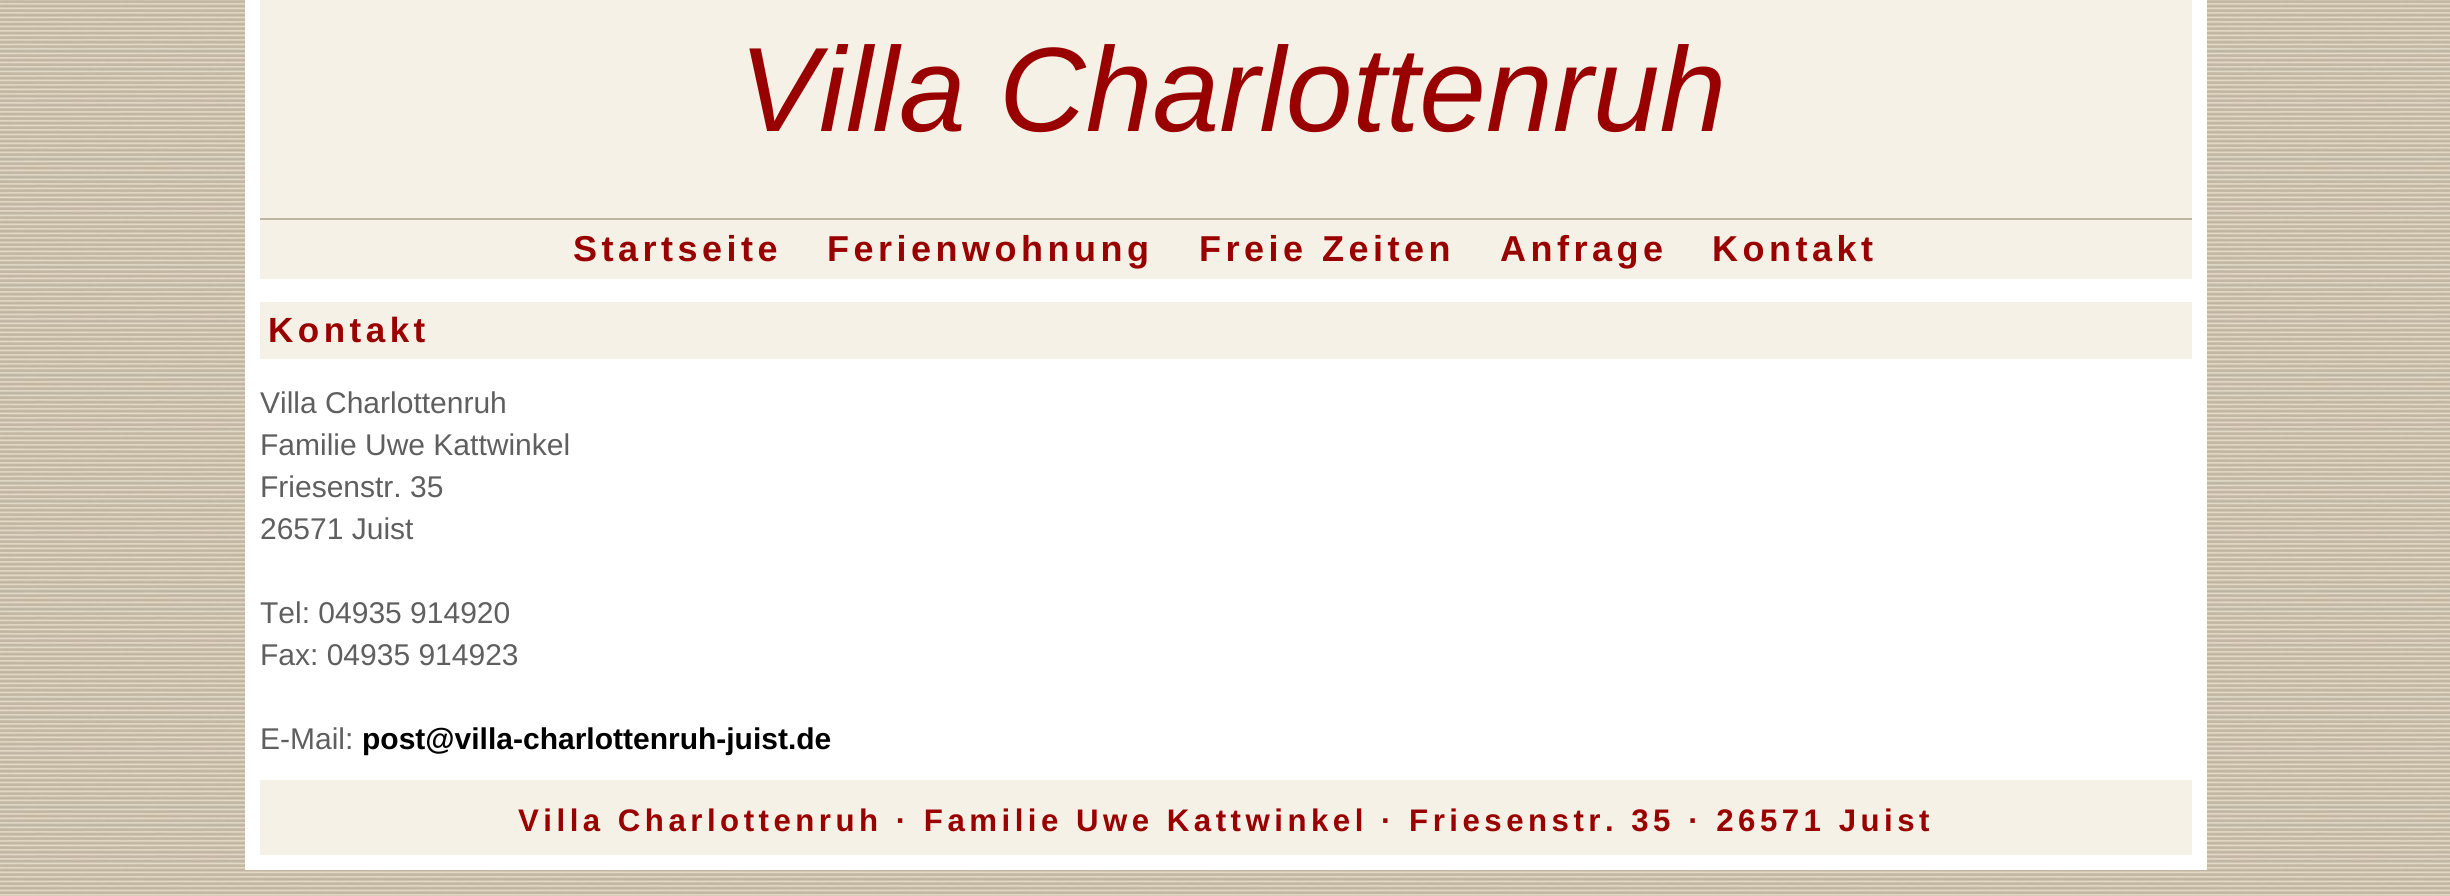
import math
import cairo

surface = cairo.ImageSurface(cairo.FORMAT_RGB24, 2450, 896)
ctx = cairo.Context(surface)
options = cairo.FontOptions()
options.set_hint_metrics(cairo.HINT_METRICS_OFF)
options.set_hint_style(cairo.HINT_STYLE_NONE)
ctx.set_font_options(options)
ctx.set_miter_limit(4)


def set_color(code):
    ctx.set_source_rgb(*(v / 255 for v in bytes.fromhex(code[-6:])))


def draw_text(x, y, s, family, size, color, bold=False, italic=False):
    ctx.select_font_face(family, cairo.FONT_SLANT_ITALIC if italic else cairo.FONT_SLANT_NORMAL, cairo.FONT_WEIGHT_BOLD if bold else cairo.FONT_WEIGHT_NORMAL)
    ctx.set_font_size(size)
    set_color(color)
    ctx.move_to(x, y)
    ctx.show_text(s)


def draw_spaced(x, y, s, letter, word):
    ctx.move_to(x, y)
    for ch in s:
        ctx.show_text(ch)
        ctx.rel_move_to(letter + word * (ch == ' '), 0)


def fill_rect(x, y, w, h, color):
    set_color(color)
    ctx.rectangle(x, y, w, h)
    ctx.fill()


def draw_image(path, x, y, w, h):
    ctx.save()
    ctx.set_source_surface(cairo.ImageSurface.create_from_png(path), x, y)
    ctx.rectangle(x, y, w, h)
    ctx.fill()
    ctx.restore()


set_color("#ffffff")
ctx.paint()
draw_image("assets/img1.png", 0, 0, 2450, 896)
fill_rect(245, 218, 1962, 547, "#ffffff")
fill_rect(260, 0, 1932, 218, "#f5f1e6")
fill_rect(2192, 0, 15, 218, "#ffffff")
fill_rect(245, 0, 15, 218, "#ffffff")
draw_text(739, 131, "Villa Charlottenruh", "Liberation Sans", 120, "#990000", italic=True)
fill_rect(260, 220, 1932, 59, "#f5f1e6")
fill_rect(260, 218, 1932, 2, "#bcb5a2")
ctx.select_font_face("Liberation Sans", cairo.FONT_SLANT_NORMAL, cairo.FONT_WEIGHT_BOLD)
ctx.set_font_size(36)
set_color("#990000")
draw_spaced(573, 261, "Startseite", 4.5, 0)
draw_spaced(827, 261, "Ferienwohnung", 4.5, 0)
draw_spaced(1199, 261, "Freie Zeiten", 4.5, 0)
draw_spaced(1500, 261, "Anfrage", 4.5, 0)
draw_spaced(1712, 261, "Kontakt", 4.5, 0)
fill_rect(260, 302, 1932, 57, "#f5f1e6")
ctx.set_font_size(35)
set_color("#990000")
draw_spaced(268, 342, "Kontakt", 4.5, 0)
draw_text(260, 413, "Villa Charlottenruh", "Liberation Sans", 30, "#5f5f5f")
draw_text(260, 455, "Familie Uwe Kattwinkel", "Liberation Sans", 30, "#5f5f5f")
draw_text(260, 497, "Friesenstr. 35", "Liberation Sans", 30, "#5f5f5f")
draw_text(260, 539, "26571 Juist", "Liberation Sans", 30, "#5f5f5f")
draw_text(260, 623, "Tel: 04935 914920", "Liberation Sans", 30, "#5f5f5f")
draw_text(260, 665, "Fax: 04935 914923", "Liberation Sans", 30, "#5f5f5f")
draw_text(260, 749, "E-Mail:", "Liberation Sans", 30, "#5f5f5f")
draw_text(362, 749, "post@villa-charlottenruh-juist.de", "Liberation Sans", 30, "#000000", bold=True)
set_color("#f5f1e6")
ctx.rectangle(252.5, 772.5, 1947, 90)
ctx.fill_preserve()
set_color("#ffffff")
ctx.set_line_width(15)
ctx.stroke()
ctx.set_font_size(31.2)
set_color("#990000")
draw_spaced(518, 831, "Villa Charlottenruh · Familie Uwe Kattwinkel · Friesenstr. 35 · 26571 Juist", 4.5, 0)
surface.write_to_png("output.png")
